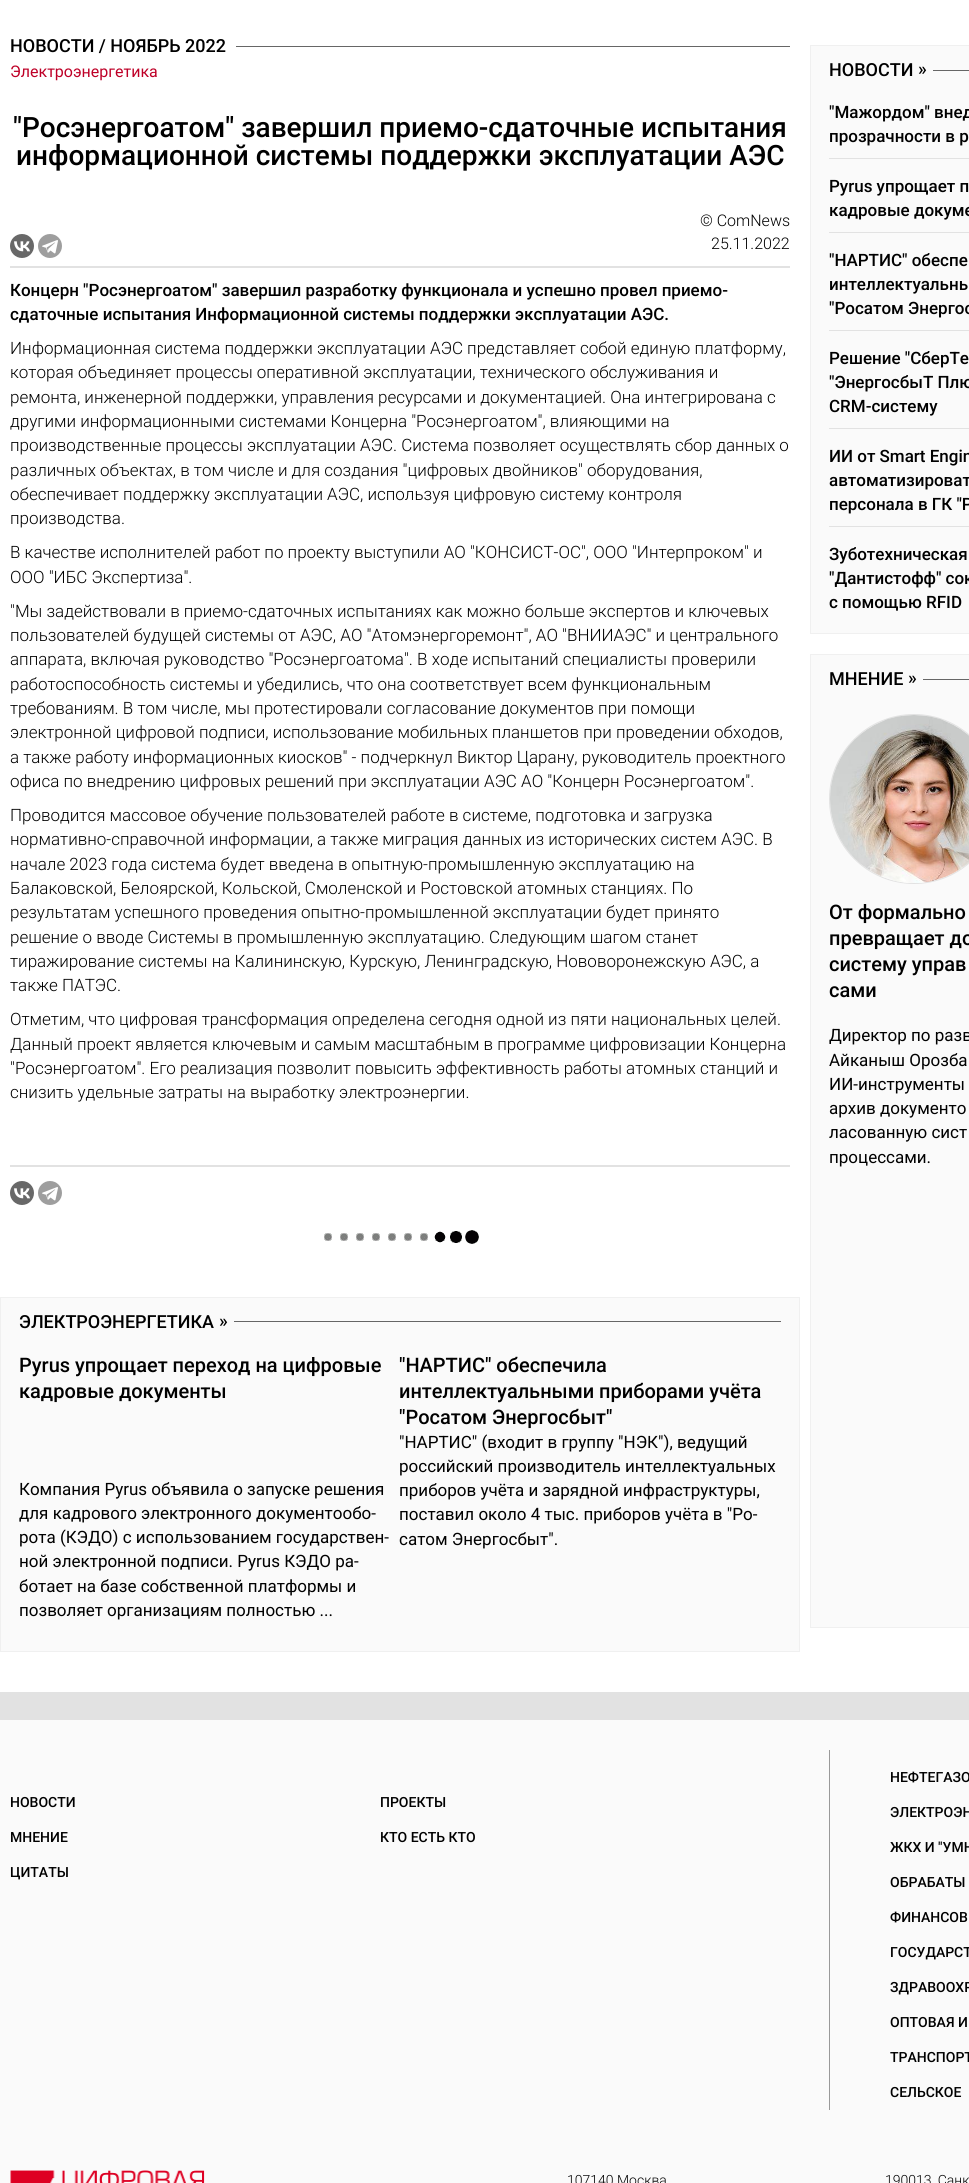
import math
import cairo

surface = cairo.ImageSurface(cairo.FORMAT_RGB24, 969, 2183)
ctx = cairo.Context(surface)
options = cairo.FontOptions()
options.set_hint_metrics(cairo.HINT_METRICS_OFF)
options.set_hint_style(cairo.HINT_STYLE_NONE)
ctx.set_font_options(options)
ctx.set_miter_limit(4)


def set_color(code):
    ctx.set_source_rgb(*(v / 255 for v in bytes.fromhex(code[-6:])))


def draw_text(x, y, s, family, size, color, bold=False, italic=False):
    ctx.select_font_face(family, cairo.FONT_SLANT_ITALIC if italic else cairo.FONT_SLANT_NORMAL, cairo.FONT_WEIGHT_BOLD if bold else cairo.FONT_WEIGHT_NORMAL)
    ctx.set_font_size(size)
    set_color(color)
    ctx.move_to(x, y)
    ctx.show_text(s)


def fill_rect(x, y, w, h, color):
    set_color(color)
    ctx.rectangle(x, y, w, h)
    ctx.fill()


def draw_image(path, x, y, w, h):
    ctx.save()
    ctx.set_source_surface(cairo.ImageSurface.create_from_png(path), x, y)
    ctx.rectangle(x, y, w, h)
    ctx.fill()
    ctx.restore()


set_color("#ffffff")
ctx.paint()
fill_rect(236, 46, 554, 1, "#666666")
draw_text(10, 52, "НОВОСТИ / НОЯБРЬ 2022", "Roboto Medium", 18, "#000000")
draw_text(10, 77, "Электроэнергетика", "Roboto", 16, "#be0027")
draw_text(13, 137, "\"Росэнергоатом\" завершил приемо-сдаточные испытания", "Roboto Medium", 28, "#000000")
draw_text(16, 165, "информационной системы поддержки эксплуатации АЭС", "Roboto Medium", 28, "#000000")
fill_rect(10, 1165, 780, 2, "#e2e2e2")
draw_text(700, 226, "© ComNews", "Roboto Light", 16, "#000000")
draw_text(711, 249, "25.11.2022", "Roboto Light", 16, "#000000")
fill_rect(10, 266, 780, 2, "#e2e2e2")
set_color("#686868")
ctx.new_path()
ctx.arc(22, 246, 12, 0, 2 * math.pi)
ctx.fill()
draw_image("assets/img1.png", 14, 241, 16, 11)
set_color("#9e9e9e")
ctx.arc(50, 246, 12, 0, 2 * math.pi)
ctx.fill()
draw_image("assets/img2.png", 42, 240, 16, 14)
draw_text(10, 296, "Концерн \"Росэнергоатом\" завершил разработку функционала и успешно провел приемо-", "Roboto Medium", 17, "#000000")
draw_text(10, 320, "сдаточные испытания Информационной системы поддержки эксплуатации АЭС.", "Roboto Medium", 17, "#000000")
draw_text(10, 354, "Информационная система поддержки эксплуатации АЭС представляет собой единую платформу,", "Roboto Light", 17, "#000000")
draw_text(10, 378, "которая объединяет процессы оперативной эксплуатации, технического обслуживания и", "Roboto Light", 17, "#000000")
draw_text(10, 403, "ремонта, инженерной поддержки, управления ресурсами и документацией. Она интегрирована с", "Roboto Light", 17, "#000000")
draw_text(10, 427, "другими информационными системами Концерна \"Росэнергоатом\", влияющими на", "Roboto Light", 17, "#000000")
draw_text(10, 451, "производственные процессы эксплуатации АЭС. Система позволяет осуществлять сбор данных о", "Roboto Light", 17, "#000000")
draw_text(10, 476, "различных объектах, в том числе и для создания \"цифровых двойников\" оборудования,", "Roboto Light", 17, "#000000")
draw_text(10, 500, "обеспечивает поддержку эксплуатации АЭС, используя цифровую систему контроля", "Roboto Light", 17, "#000000")
draw_text(10, 524, "производства.", "Roboto Light", 17, "#000000")
draw_text(10, 558, "В качестве исполнителей работ по проекту выступили АО \"КОНСИСТ-ОС\", ООО \"Интерпроком\" и", "Roboto Light", 17, "#000000")
draw_text(10, 583, "ООО \"ИБС Экспертиза\".", "Roboto Light", 17, "#000000")
draw_text(10, 617, "\"Мы задействовали в приемо-сдаточных испытаниях как можно больше экспертов и ключевых", "Roboto Light", 17, "#000000")
draw_text(10, 641, "пользователей будущей системы от АЭС, АО \"Атомэнергоремонт\", АО \"ВНИИАЭС\" и центрального", "Roboto Light", 17, "#000000")
draw_text(10, 665, "аппарата, включая руководство \"Росэнергоатома\". В ходе испытаний специалисты проверили", "Roboto Light", 17, "#000000")
draw_text(10, 690, "работоспособность системы и убедились, что она соответствует всем функциональным", "Roboto Light", 17, "#000000")
draw_text(10, 714, "требованиям. В том числе, мы протестировали согласование документов при помощи", "Roboto Light", 17, "#000000")
draw_text(10, 738, "электронной цифровой подписи, использование мобильных планшетов при проведении обходов,", "Roboto Light", 17, "#000000")
draw_text(10, 763, "а также работу информационных киосков\" - подчеркнул Виктор Царану, руководитель проектного", "Roboto Light", 17, "#000000")
draw_text(10, 787, "офиса по внедрению цифровых решений при эксплуатации АЭС АО \"Концерн Росэнергоатом\".", "Roboto Light", 17, "#000000")
draw_text(10, 821, "Проводится массовое обучение пользователей работе в системе, подготовка и загрузка", "Roboto Light", 17, "#000000")
draw_text(10, 845, "нормативно-справочной информации, а также миграция данных из исторических систем АЭС. В", "Roboto Light", 17, "#000000")
draw_text(10, 870, "начале 2023 года система будет введена в опытную-промышленную эксплуатацию на", "Roboto Light", 17, "#000000")
draw_text(10, 894, "Балаковской, Белоярской, Кольской, Смоленской и Ростовской атомных станциях. По", "Roboto Light", 17, "#000000")
draw_text(10, 918, "результатам успешного проведения опытно-промышленной эксплуатации будет принято", "Roboto Light", 17, "#000000")
draw_text(10, 943, "решение о вводе Системы в промышленную эксплуатацию. Следующим шагом станет", "Roboto Light", 17, "#000000")
draw_text(10, 967, "тиражирование системы на Калининскую, Курскую, Ленинградскую, Нововоронежскую АЭС, а", "Roboto Light", 17, "#000000")
draw_text(10, 991, "также ПАТЭС.", "Roboto Light", 17, "#000000")
draw_text(10, 1025, "Отметим, что цифровая трансформация определена сегодня одной из пяти национальных целей.", "Roboto Light", 17, "#000000")
draw_text(10, 1050, "Данный проект является ключевым и самым масштабным в программе цифровизации Концерна", "Roboto Light", 17, "#000000")
draw_text(10, 1074, "\"Росэнергоатом\". Его реализация позволит повысить эффективность работы атомных станций и", "Roboto Light", 17, "#000000")
draw_text(10, 1098, "снизить удельные затраты на выработку электроэнергии.", "Roboto Light", 17, "#000000")
set_color("#686868")
ctx.new_path()
ctx.arc(22, 1193, 12, 0, 2 * math.pi)
ctx.fill()
draw_image("assets/img1.png", 14, 1188, 16, 11)
set_color("#9e9e9e")
ctx.arc(50, 1193, 12, 0, 2 * math.pi)
ctx.fill()
draw_image("assets/img2.png", 42, 1187, 16, 14)
draw_image("assets/img3.png", 324, 1230, 155, 14)
set_color("#fafafa")
ctx.rectangle(0.5, 1297.5, 799, 354)
ctx.fill_preserve()
set_color("#f0f0f0")
ctx.set_line_width(1)
ctx.stroke()
fill_rect(234, 1321, 547, 1, "#666666")
draw_text(19, 1328, "ЭЛЕКТРОЭНЕРГЕТИКА", "Roboto Medium", 18, "#000000")
draw_text(219, 1327, "»", "Roboto Medium", 18, "#000000")
draw_text(19, 1372, "Pyrus упрощает переход на цифровые", "Roboto Medium", 20, "#000000")
draw_text(19, 1398, "кадровые документы", "Roboto Medium", 20, "#000000")
draw_text(19, 1495, "Компания Pyrus объявила о запуске решения", "Roboto", 17, "#000000")
draw_text(19, 1519, "для кадрового электронного документообо-", "Roboto", 17, "#000000")
draw_text(19, 1543, "рота (КЭДО) с использованием государствен-", "Roboto", 17, "#000000")
draw_text(19, 1567, "ной электронной подписи. Pyrus КЭДО ра-", "Roboto", 17, "#000000")
draw_text(19, 1592, "ботает на базе собственной платформы и", "Roboto", 17, "#000000")
draw_text(19, 1616, "позволяет организациям полностью ...", "Roboto", 17, "#000000")
draw_text(399, 1372, "\"НАРТИС\" обеспечила", "Roboto Medium", 20, "#000000")
draw_text(399, 1398, "интеллектуальными приборами учёта", "Roboto Medium", 20, "#000000")
draw_text(399, 1424, "\"Росатом Энергосбыт\"", "Roboto Medium", 20, "#000000")
draw_text(399, 1448, "\"НАРТИС\" (входит в группу \"НЭК\"), ведущий", "Roboto", 17, "#000000")
draw_text(399, 1472, "российский производитель интеллектуальных", "Roboto", 17, "#000000")
draw_text(399, 1496, "приборов учёта и зарядной инфраструктуры,", "Roboto", 17, "#000000")
draw_text(399, 1520, "поставил около 4 тыс. приборов учёта в \"Ро-", "Roboto", 17, "#000000")
draw_text(399, 1545, "сатом Энергосбыт\".", "Roboto", 17, "#000000")
set_color("#fafafa")
ctx.rectangle(810.5, 45.5, 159, 588)
ctx.fill_preserve()
set_color("#f0f0f0")
ctx.stroke()
fill_rect(933, 70, 36, 1, "#666666")
draw_text(829, 76, "НОВОСТИ", "Roboto Medium", 18, "#000000")
draw_text(918, 75, "»", "Roboto Medium", 18, "#000000")
fill_rect(829, 158, 140, 1, "#e2e2e2")
draw_text(829, 118, "\"Мажордом\" внед", "Roboto Medium", 17, "#000000")
draw_text(829, 142, "прозрачности в р", "Roboto Medium", 17, "#000000")
fill_rect(829, 232, 140, 1, "#e2e2e2")
draw_text(829, 192, "Pyrus упрощает п", "Roboto Medium", 17, "#000000")
draw_text(829, 216, "кадровые докуме", "Roboto Medium", 17, "#000000")
fill_rect(829, 330, 140, 1, "#e2e2e2")
draw_text(829, 266, "\"НАРТИС\" обеспе", "Roboto Medium", 17, "#000000")
draw_text(829, 290, "интеллектуальны", "Roboto Medium", 17, "#000000")
draw_text(829, 314, "\"Росатом Энергос", "Roboto Medium", 17, "#000000")
fill_rect(829, 428, 140, 1, "#e2e2e2")
draw_text(829, 364, "Решение \"СберТе", "Roboto Medium", 17, "#000000")
draw_text(829, 388, "\"ЭнергосбыТ Плю", "Roboto Medium", 17, "#000000")
draw_text(829, 412, "CRM-систему", "Roboto Medium", 17, "#000000")
fill_rect(829, 526, 140, 1, "#e2e2e2")
draw_text(829, 462, "ИИ от Smart Engin", "Roboto Medium", 17, "#000000")
draw_text(829, 486, "автоматизироват", "Roboto Medium", 17, "#000000")
draw_text(829, 510, "персонала в ГК \"Р", "Roboto Medium", 17, "#000000")
draw_text(829, 560, "Зуботехническая", "Roboto Medium", 17, "#000000")
draw_text(829, 584, "\"Дантистофф\" сок", "Roboto Medium", 17, "#000000")
draw_text(829, 608, "с помощью RFID", "Roboto Medium", 17, "#000000")
set_color("#fafafa")
ctx.rectangle(810.5, 654.5, 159, 973)
ctx.fill_preserve()
set_color("#f0f0f0")
ctx.stroke()
fill_rect(923, 679, 46, 1, "#666666")
draw_text(829, 685, "МНЕНИЕ", "Roboto Medium", 18, "#000000")
draw_text(908, 684, "»", "Roboto Medium", 18, "#000000")
ctx.new_path()
ctx.arc(914, 799, 84.5, 0, 2 * math.pi)
set_color("#e2e2e2")
ctx.stroke()
draw_image("assets/img4.png", 830, 715, 139, 168)
draw_text(829, 919, "От формально", "Roboto Medium", 20, "#000000")
draw_text(829, 945, "превращает до", "Roboto Medium", 20, "#000000")
draw_text(829, 971, "систему управ", "Roboto Medium", 20, "#000000")
draw_text(829, 997, "сами", "Roboto Medium", 20, "#000000")
draw_text(829, 1041, "Директор по разв", "Roboto", 17, "#000000")
draw_text(829, 1066, "Айканыш Орозба", "Roboto", 17, "#000000")
draw_text(829, 1090, "ИИ-инструменты", "Roboto", 17, "#000000")
draw_text(829, 1114, "архив документо", "Roboto", 17, "#000000")
draw_text(829, 1138, "ласованную сист", "Roboto", 17, "#000000")
draw_text(829, 1163, "процессами.", "Roboto", 17, "#000000")
fill_rect(0, 1720, 969, 463, "#fafafa")
fill_rect(0, 1692, 969, 28, "#e2e2e2")
draw_text(10, 1807, "НОВОСТИ", "Roboto Medium", 14, "#000000")
draw_text(10, 1842, "МНЕНИЕ", "Roboto Medium", 14, "#000000")
draw_text(10, 1877, "ЦИТАТЫ", "Roboto Medium", 14, "#000000")
fill_rect(829, 1750, 1, 360, "#999999")
draw_text(380, 1807, "ПРОЕКТЫ", "Roboto Medium", 14, "#000000")
draw_text(380, 1842, "КТО ЕСТЬ КТО", "Roboto Medium", 14, "#000000")
draw_text(890, 1782, "НЕФТЕГАЗО", "Roboto Medium", 14, "#000000")
draw_text(890, 1817, "ЭЛЕКТРОЭН", "Roboto Medium", 14, "#000000")
draw_text(890, 1852, "ЖКХ И \"УМН", "Roboto Medium", 14, "#000000")
draw_text(890, 1887, "ОБРАБАТЫ", "Roboto Medium", 14, "#000000")
draw_text(890, 1922, "ФИНАНСОВ", "Roboto Medium", 14, "#000000")
draw_text(890, 1957, "ГОСУДАРСТ", "Roboto Medium", 14, "#000000")
draw_text(890, 1992, "ЗДРАВООХР", "Roboto Medium", 14, "#000000")
draw_text(890, 2027, "ОПТОВАЯ И", "Roboto Medium", 14, "#000000")
draw_text(890, 2062, "ТРАНСПОРТ", "Roboto Medium", 14, "#000000")
draw_text(890, 2097, "СЕЛЬСКОЕ", "Roboto Medium", 14, "#000000")
draw_image("assets/img5.png", 10, 2170, 195, 13)
draw_text(567, 2185, "107140 Москва", "Roboto Light", 14, "#000000")
draw_text(885, 2185, "190013, Санк", "Roboto Light", 14, "#000000")
surface.write_to_png("output.png")
